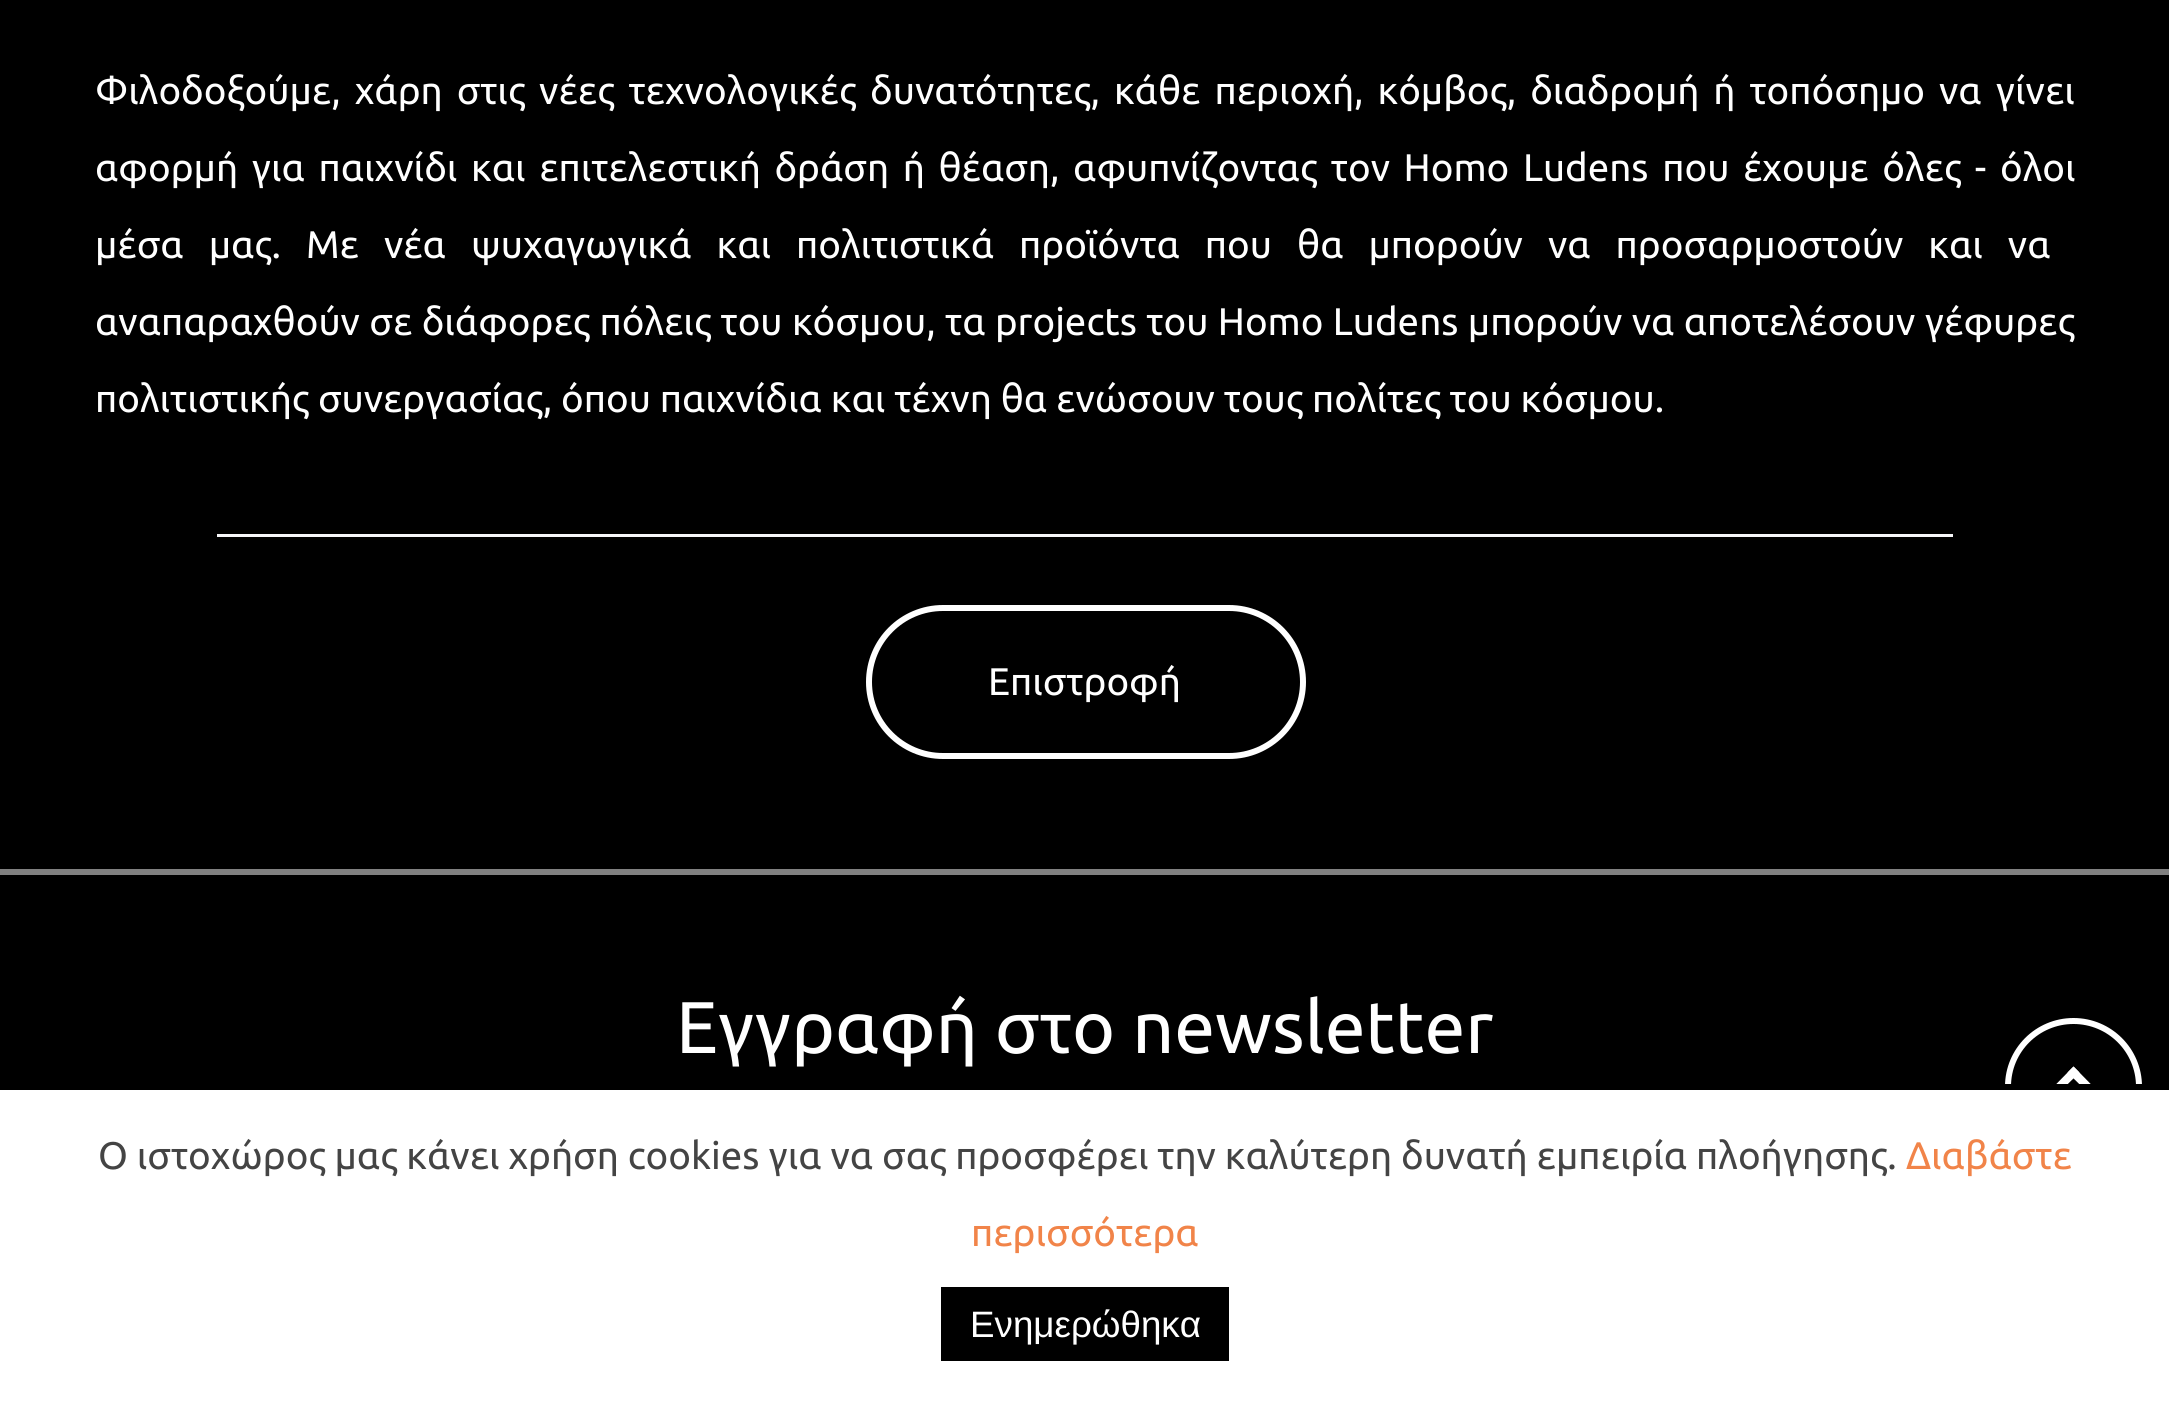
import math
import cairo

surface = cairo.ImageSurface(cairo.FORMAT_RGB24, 2169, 1401)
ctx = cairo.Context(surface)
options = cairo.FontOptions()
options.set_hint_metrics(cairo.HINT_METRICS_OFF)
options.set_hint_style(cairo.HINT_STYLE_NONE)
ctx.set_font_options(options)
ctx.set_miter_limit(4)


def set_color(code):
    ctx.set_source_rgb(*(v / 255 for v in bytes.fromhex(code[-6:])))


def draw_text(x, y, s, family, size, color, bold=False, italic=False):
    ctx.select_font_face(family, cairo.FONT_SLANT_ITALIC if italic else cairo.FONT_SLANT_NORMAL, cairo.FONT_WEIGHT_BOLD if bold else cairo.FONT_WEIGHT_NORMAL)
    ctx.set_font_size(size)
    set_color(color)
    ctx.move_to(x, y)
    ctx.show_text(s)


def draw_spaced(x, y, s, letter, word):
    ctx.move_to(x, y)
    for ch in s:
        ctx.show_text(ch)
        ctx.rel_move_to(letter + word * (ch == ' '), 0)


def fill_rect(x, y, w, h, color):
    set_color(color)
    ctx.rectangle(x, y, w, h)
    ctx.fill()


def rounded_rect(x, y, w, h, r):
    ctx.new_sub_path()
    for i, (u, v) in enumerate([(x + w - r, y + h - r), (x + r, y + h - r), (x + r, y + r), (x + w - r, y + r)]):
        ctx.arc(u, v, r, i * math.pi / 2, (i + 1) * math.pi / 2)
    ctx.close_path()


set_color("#000000")
ctx.paint()
ctx.select_font_face("Ubuntu")
ctx.set_font_size(38.5)
set_color("#ffffff")
draw_spaced(95, 104, "Φιλοδοξούμε, χάρη στις νέες τεχνολογικές δυνατότητες, κάθε περιοχή, κόμβος, διαδρομή ή τοπόσημο να γίνει", 0, 5.1)
draw_spaced(95, 181, "αφορμή για παιχνίδι και επιτελεστική δράση ή θέαση, αφυπνίζοντας τον Homo Ludens που έχουμε όλες - όλοι", 0, 4.75)
draw_spaced(95, 258, "μέσα μας. Με νέα ψυχαγωγικά και πολιτιστικά προϊόντα που θα μπορούν να προσαρμοστούν και να", 0, 16.1)
draw_spaced(95, 335, "αναπαραχθούν σε διάφορες πόλεις του κόσμου, τα projects του Homo Ludens μπορούν να αποτελέσουν γέφυρες", 0, 0.5)
draw_text(95, 412, "πολιτιστικής συνεργασίας, όπου παιχνίδια και τέχνη θα ενώσουν τους πολίτες του κόσμου.", "Ubuntu", 38.5, "#ffffff")
fill_rect(217, 534, 1736, 3, "#f7f7f9")
rounded_rect(869, 608, 434, 148, 74)
set_color("#ffffff")
ctx.set_line_width(6)
ctx.stroke()
draw_text(988, 695, "Επιστροφή", "Ubuntu", 38.5, "#ffffff")
fill_rect(0, 869, 2169, 6, "#808080")
draw_text(676, 1053, "Εγγραφή στο newsletter", "Ubuntu", 73.2, "#ffffff")
ctx.new_path()
ctx.arc(2073.5, 1086.5, 65.5, 0, 2 * math.pi)
ctx.stroke()
ctx.new_path()
ctx.move_to(2044.5, 1096)
ctx.line_to(2073.5, 1066.5)
ctx.line_to(2079.5, 1072.5)
ctx.line_to(2050, 1101.5)
ctx.close_path()
ctx.fill()
ctx.new_path()
ctx.move_to(2067.5, 1072.5)
ctx.line_to(2073.5, 1066.5)
ctx.line_to(2102.5, 1096)
ctx.line_to(2097, 1101.5)
ctx.close_path()
ctx.fill()
fill_rect(0, 1090, 2169, 311, "#ffffff")
fill_rect(2005, 1084, 137, 6, "#000000")
draw_text(98, 1169, "Ο ιστοχώρος μας κάνει χρήση cookies για να σας προσφέρει την καλύτερη δυνατή εμπειρία πλοήγησης.", "Ubuntu", 38.5, "#444444")
draw_text(1906, 1169, "Διαβάστε", "Ubuntu", 38.5, "#f18449")
draw_text(971, 1246, "περισσότερα", "Ubuntu", 38.5, "#f18449")
fill_rect(941, 1287, 288, 74, "#000000")
draw_text(970, 1337, "Ενημερώθηκα", "Liberation Sans", 36.75, "#ffffff")
surface.write_to_png("output.png")
